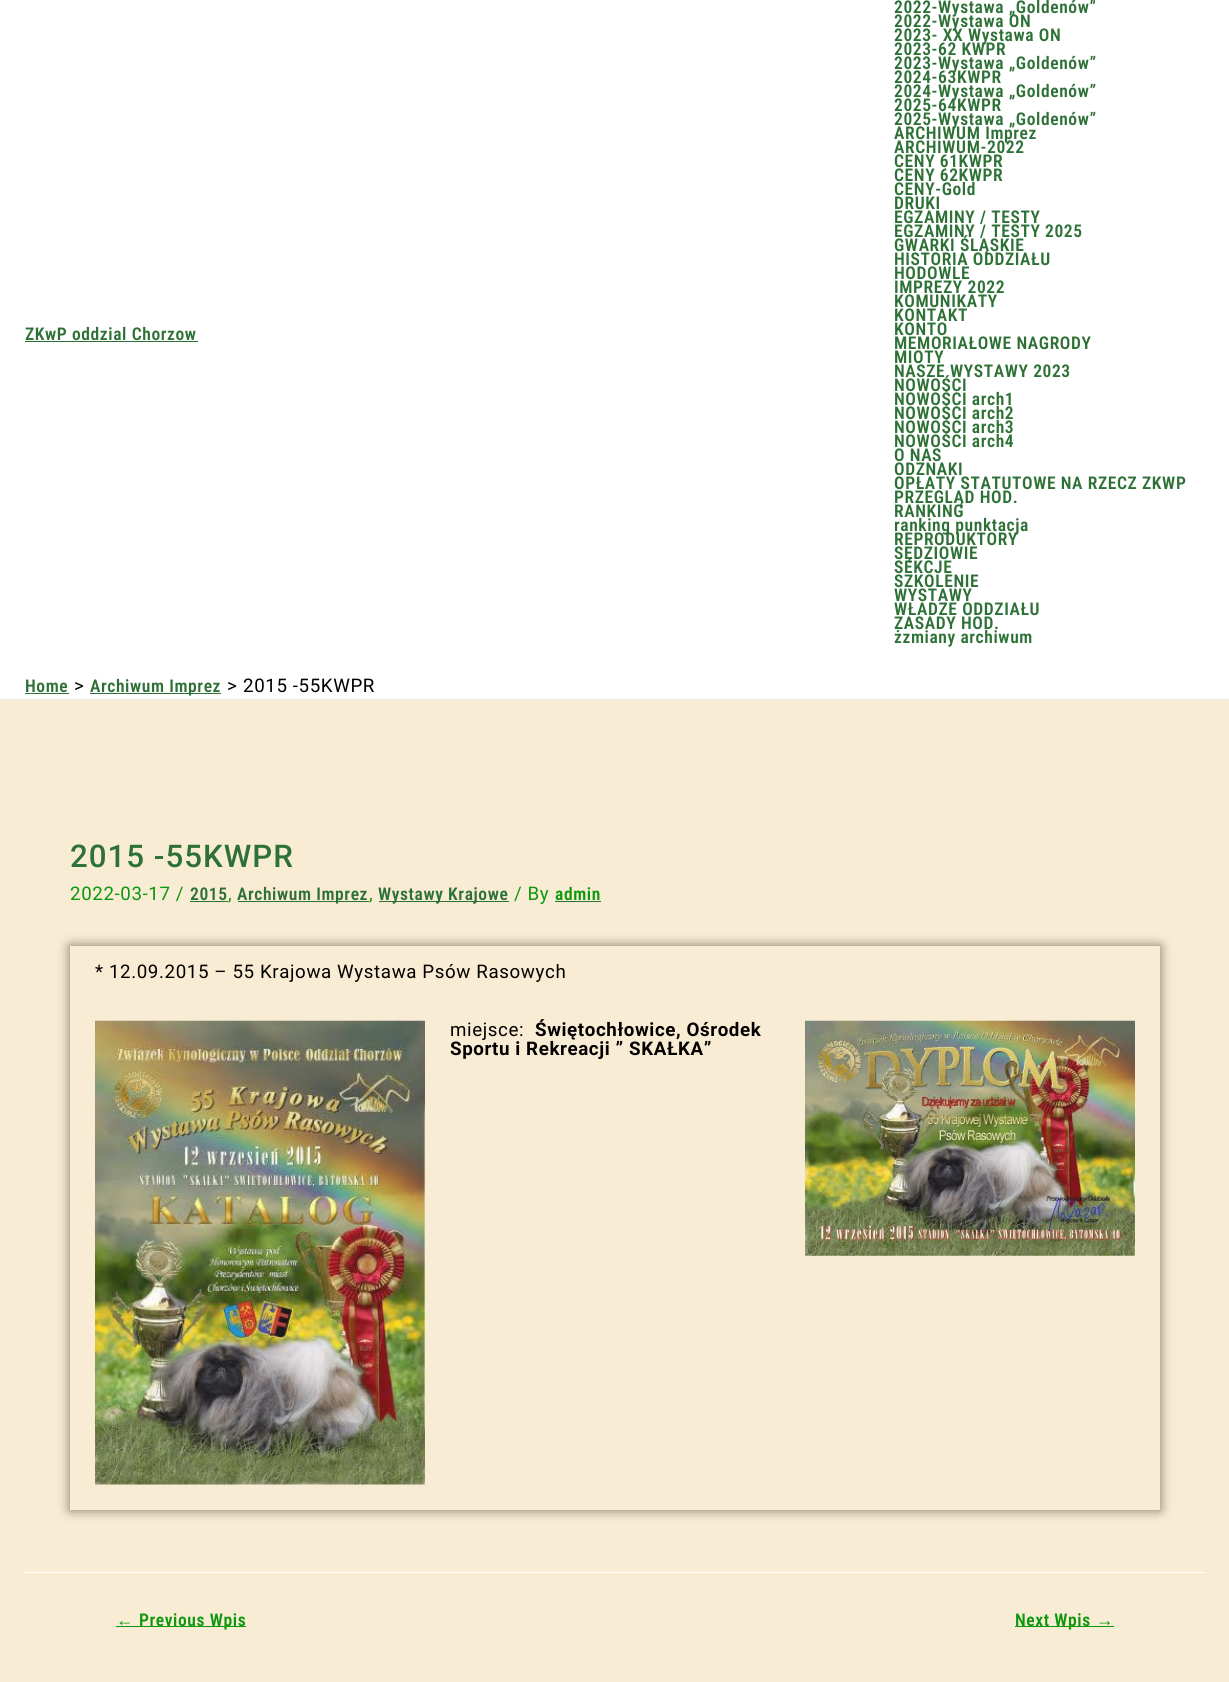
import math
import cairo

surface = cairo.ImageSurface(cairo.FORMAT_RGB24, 1229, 1682)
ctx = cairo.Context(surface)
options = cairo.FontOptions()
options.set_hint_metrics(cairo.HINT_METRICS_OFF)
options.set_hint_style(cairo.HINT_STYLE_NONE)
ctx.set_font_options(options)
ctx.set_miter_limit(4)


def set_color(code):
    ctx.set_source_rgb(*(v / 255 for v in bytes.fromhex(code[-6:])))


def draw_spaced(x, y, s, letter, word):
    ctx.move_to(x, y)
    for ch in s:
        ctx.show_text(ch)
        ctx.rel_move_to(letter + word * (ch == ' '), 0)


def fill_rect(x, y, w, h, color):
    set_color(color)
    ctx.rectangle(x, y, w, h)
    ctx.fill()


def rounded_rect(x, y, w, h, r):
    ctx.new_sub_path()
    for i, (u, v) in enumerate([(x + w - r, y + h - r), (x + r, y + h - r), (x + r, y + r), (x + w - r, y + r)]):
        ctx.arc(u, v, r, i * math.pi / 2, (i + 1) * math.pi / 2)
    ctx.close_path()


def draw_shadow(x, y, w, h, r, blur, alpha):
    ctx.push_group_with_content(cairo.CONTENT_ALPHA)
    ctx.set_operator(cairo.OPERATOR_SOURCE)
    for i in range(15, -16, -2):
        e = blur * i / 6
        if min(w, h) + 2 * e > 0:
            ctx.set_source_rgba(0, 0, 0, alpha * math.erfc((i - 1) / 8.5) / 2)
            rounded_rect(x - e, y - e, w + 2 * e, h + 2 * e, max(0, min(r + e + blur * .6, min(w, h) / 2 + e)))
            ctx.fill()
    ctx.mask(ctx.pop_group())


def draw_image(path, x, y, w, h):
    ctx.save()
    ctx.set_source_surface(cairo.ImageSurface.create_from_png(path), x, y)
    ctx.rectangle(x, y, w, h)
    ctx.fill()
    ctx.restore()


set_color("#f8ecd4")
ctx.paint()
fill_rect(0, 0, 1229, 699, "#ffffff")
fill_rect(0, 699, 1229, 1, "#eaeaea")
ctx.select_font_face("Roboto Condensed SemiBold")
ctx.set_font_size(17.5)
set_color("#2d7136")
draw_spaced(25, 340, "ZKwP oddzial Chorzow", 0.6, 0)
fill_rect(25, 341, 173, 1, "#2d7136")
draw_spaced(894, 13, "2022-Wystawa „Goldenów”", 0.6, 0)
draw_spaced(894, 27, "2022-Wystawa ON", 0.6, 0)
draw_spaced(894, 41, "2023- XX Wystawa ON", 0.6, 0)
draw_spaced(894, 55, "2023-62 KWPR", 0.6, 0)
draw_spaced(894, 69, "2023-Wystawa „Goldenów”", 0.6, 0)
draw_spaced(894, 83, "2024-63KWPR", 0.6, 0)
draw_spaced(894, 97, "2024-Wystawa „Goldenów”", 0.6, 0)
draw_spaced(894, 111, "2025-64KWPR", 0.6, 0)
draw_spaced(894, 125, "2025-Wystawa „Goldenów”", 0.6, 0)
draw_spaced(894, 139, "ARCHIWUM Imprez", 0.6, 0)
draw_spaced(894, 153, "ARCHIWUM-2022", 0.6, 0)
draw_spaced(894, 167, "CENY 61KWPR", 0.6, 0)
draw_spaced(894, 181, "CENY 62KWPR", 0.6, 0)
draw_spaced(894, 195, "CENY-Gold", 0.6, 0)
draw_spaced(894, 209, "DRUKI", 0.6, 0)
draw_spaced(894, 223, "EGZAMINY / TESTY", 0.6, 0)
draw_spaced(894, 237, "EGZAMINY / TESTY 2025", 0.6, 0)
draw_spaced(894, 251, "GWARKI ŚLĄSKIE", 0.6, 0)
draw_spaced(894, 265, "HISTORIA ODDZIAŁU", 0.6, 0)
draw_spaced(894, 279, "HODOWLE", 0.6, 0)
draw_spaced(894, 293, "IMPREZY 2022", 0.6, 0)
draw_spaced(894, 307, "KOMUNIKATY", 0.6, 0)
draw_spaced(894, 321, "KONTAKT", 0.6, 0)
draw_spaced(894, 335, "KONTO", 0.6, 0)
draw_spaced(894, 349, "MEMORIAŁOWE NAGRODY", 0.6, 0)
draw_spaced(894, 363, "MIOTY", 0.6, 0)
draw_spaced(894, 377, "NASZE WYSTAWY 2023", 0.6, 0)
draw_spaced(894, 391, "NOWOŚCI", 0.6, 0)
draw_spaced(894, 405, "NOWOŚCI arch1", 0.6, 0)
draw_spaced(894, 419, "NOWOŚCI arch2", 0.6, 0)
draw_spaced(894, 433, "NOWOŚCI arch3", 0.6, 0)
draw_spaced(894, 447, "NOWOŚCI arch4", 0.6, 0)
draw_spaced(894, 461, "O NAS", 0.6, 0)
draw_spaced(894, 475, "ODZNAKI", 0.6, 0)
draw_spaced(894, 489, "OPŁATY STATUTOWE NA RZECZ ZKWP", 0.6, 0)
draw_spaced(894, 503, "PRZEGLĄD HOD.", 0.6, 0)
draw_spaced(894, 517, "RANKING", 0.6, 0)
draw_spaced(894, 531, "ranking punktacja", 0.6, 0)
draw_spaced(894, 545, "REPRODUKTORY", 0.6, 0)
draw_spaced(894, 559, "SĘDZIOWIE", 0.6, 0)
draw_spaced(894, 573, "SEKCJE", 0.6, 0)
draw_spaced(894, 587, "SZKOLENIE", 0.6, 0)
draw_spaced(894, 601, "WYSTAWY", 0.6, 0)
draw_spaced(894, 615, "WŁADZE ODDZIAŁU", 0.6, 0)
draw_spaced(894, 629, "ZASADY HOD.", 0.6, 0)
draw_spaced(894, 643, "żzmiany archiwum", 0.6, 0)
draw_spaced(25, 692, "Home", 0.6, 0)
fill_rect(25, 693, 44, 1, "#2d7136")
ctx.select_font_face("Roboto")
ctx.set_font_size(18.75)
set_color("#030000")
draw_spaced(74, 692, ">", 0.6, 0)
fill_rect(90, 693, 131, 1, "#2d7136")
ctx.select_font_face("Roboto Condensed SemiBold")
ctx.set_font_size(17.5)
draw_spaced(90, 692, "Archiwum Imprez", 0.6, 0)
ctx.select_font_face("Roboto")
ctx.set_font_size(18.75)
set_color("#030000")
draw_spaced(227, 692, ">", 0.6, 0)
draw_spaced(243, 692, "2015 -55KWPR", 0.6, 0)
fill_rect(25, 1572, 1180, 1, "#ffffff")
ctx.select_font_face("Roboto Medium")
ctx.set_font_size(31.25)
set_color("#2d7136")
draw_spaced(70, 867, "2015 -55KWPR", 1, 0)
ctx.select_font_face("Roboto")
ctx.set_font_size(18.75)
set_color("#0c970c")
draw_spaced(70, 900, "2022-03-17 /", 0.6, 0)
ctx.select_font_face("Roboto Condensed SemiBold")
ctx.set_font_size(17.5)
set_color("#2d7136")
draw_spaced(190, 900, "2015", 0.6, 0)
fill_rect(190, 901, 38, 1, "#2d7136")
ctx.select_font_face("Roboto")
ctx.set_font_size(18.75)
set_color("#0c970c")
draw_spaced(228, 900, ",", 0.6, 0)
fill_rect(238, 901, 131, 1, "#2d7136")
ctx.select_font_face("Roboto Condensed SemiBold")
ctx.set_font_size(17.5)
draw_spaced(237, 900, "Archiwum Imprez", 0.6, 0)
ctx.select_font_face("Roboto")
ctx.set_font_size(18.75)
set_color("#0c970c")
draw_spaced(369, 900, ",", 0.6, 0)
fill_rect(379, 901, 130, 1, "#2d7136")
ctx.select_font_face("Roboto Condensed SemiBold")
ctx.set_font_size(17.5)
draw_spaced(378, 900, "Wystawy Krajowe", 0.6, 0)
ctx.select_font_face("Roboto")
ctx.set_font_size(18.75)
set_color("#0c970c")
draw_spaced(514, 900, "/ By", 0.6, 0)
ctx.select_font_face("Roboto Condensed SemiBold")
ctx.set_font_size(17.5)
draw_spaced(555, 900, "admin", 0.6, 0)
fill_rect(555, 901, 46, 1, "#2d7136")
ctx.save()
ctx.set_fill_rule(cairo.FILL_RULE_EVEN_ODD)
ctx.new_path()
ctx.move_to(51, 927)
ctx.line_to(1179, 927)
ctx.line_to(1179, 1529)
ctx.line_to(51, 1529)
ctx.close_path()
ctx.move_to(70, 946)
ctx.line_to(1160, 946)
ctx.line_to(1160, 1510)
ctx.line_to(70, 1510)
ctx.close_path()
ctx.clip()
set_color("#000000")
draw_shadow(70, 946, 1090, 564, 0, 6, 0.5)
ctx.restore()
ctx.select_font_face("Roboto")
ctx.set_font_size(18.75)
set_color("#030000")
draw_spaced(95, 978, "* 12.09.2015 – 55 Krajowa Wystawa Psów Rasowych", 0.6, 0)
draw_image("assets/img1.png", 95, 1020, 330, 465)
draw_spaced(450, 1036, "miejsce:", 0.6, 0)
ctx.select_font_face("Roboto", cairo.FONT_SLANT_NORMAL, cairo.FONT_WEIGHT_BOLD)
draw_spaced(535, 1036, "Świętochłowice, Ośrodek", 0.6, 0)
draw_spaced(450, 1055, "Sportu i Rekreacji ” SKAŁKA”", 0.6, 0)
draw_image("assets/img2.png", 805, 1020, 330, 236)
ctx.select_font_face("Liberation Sans", cairo.FONT_SLANT_NORMAL, cairo.FONT_WEIGHT_BOLD)
ctx.set_font_size(17.5)
set_color("#0c970c")
draw_spaced(116, 1626, "←", 0.6, 0)
fill_rect(116, 1626, 130, 1, "#0c970c")
ctx.select_font_face("Roboto Condensed SemiBold")
draw_spaced(139, 1626, "Previous Wpis", 0.6, 0)
fill_rect(1015, 1626, 99, 1, "#0c970c")
draw_spaced(1015, 1626, "Next Wpis", 0.6, 0)
ctx.select_font_face("Liberation Sans", cairo.FONT_SLANT_NORMAL, cairo.FONT_WEIGHT_BOLD)
draw_spaced(1096, 1626, "→", 0.6, 0)
surface.write_to_png("output.png")
